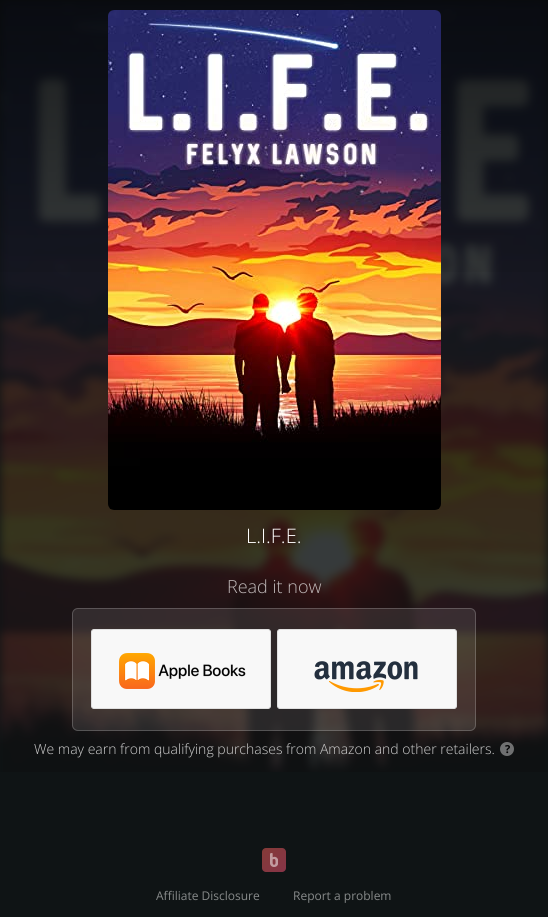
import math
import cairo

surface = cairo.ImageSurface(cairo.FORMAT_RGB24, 548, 917)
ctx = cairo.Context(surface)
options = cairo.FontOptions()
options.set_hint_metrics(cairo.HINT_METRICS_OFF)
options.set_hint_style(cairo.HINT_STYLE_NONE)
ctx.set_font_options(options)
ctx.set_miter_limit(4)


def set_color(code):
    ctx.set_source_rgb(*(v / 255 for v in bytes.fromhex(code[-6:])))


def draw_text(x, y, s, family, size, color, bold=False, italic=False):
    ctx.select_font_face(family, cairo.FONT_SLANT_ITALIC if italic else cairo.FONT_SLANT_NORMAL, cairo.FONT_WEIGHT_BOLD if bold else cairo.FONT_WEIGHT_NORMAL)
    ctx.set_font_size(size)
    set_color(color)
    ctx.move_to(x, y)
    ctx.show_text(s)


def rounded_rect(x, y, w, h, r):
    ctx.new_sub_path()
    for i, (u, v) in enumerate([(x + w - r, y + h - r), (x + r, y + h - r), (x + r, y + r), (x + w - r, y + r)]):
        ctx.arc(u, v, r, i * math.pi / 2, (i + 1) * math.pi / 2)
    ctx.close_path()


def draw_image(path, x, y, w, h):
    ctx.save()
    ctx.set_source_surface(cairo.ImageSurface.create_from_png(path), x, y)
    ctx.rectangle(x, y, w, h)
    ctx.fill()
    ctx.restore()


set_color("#0f1415")
ctx.paint()
draw_image("assets/img1.png", 0, 0, 548, 772)
gradient = cairo.LinearGradient(274, 0, 274, 300)
gradient.add_color_stop_rgba(0, 0, 0, 0, 0.5)
gradient.add_color_stop_rgba(1, 0, 0, 0, 0)
ctx.set_source(gradient)
ctx.rectangle(0, 0, 548, 272)
ctx.fill()
draw_image("assets/img2.png", 108, 10, 333, 500)
draw_text(246, 543, "L.I.F.E.", "Open Sans Light", 20, "#ffffff")
draw_text(227, 593, "Read it now", "Open Sans Light", 18, "#bfb8b8")
ctx.set_source_rgba(1, 1, 1, 0.1)
rounded_rect(72, 608, 404, 123, 6)
ctx.fill()
rounded_rect(72.5, 608.5, 403, 122, 5.5)
ctx.set_source_rgba(1, 1, 1, 0.2)
ctx.set_line_width(1)
ctx.stroke()
set_color("#f8f8f8")
rounded_rect(91.5, 629.5, 179, 79, 2.5)
ctx.fill_preserve()
set_color("#e0e0e0")
ctx.stroke()
draw_image("assets/img3.png", 119, 653, 127, 36)
set_color("#f8f8f8")
rounded_rect(277.5, 629.5, 179, 79, 2.5)
ctx.fill_preserve()
set_color("#e0e0e0")
ctx.stroke()
draw_image("assets/img4.png", 314, 661, 104, 31)
draw_text(34, 754, "We may earn from qualifying purchases from Amazon and other retailers.", "Open Sans Light", 14, "#d0d0d0")
ctx.set_source_rgba(1, 1, 1, 0.4)
ctx.new_path()
ctx.arc(507, 749, 7, 0, 2 * math.pi)
ctx.fill()
draw_text(505, 753, "?", "Open Sans", 11, "#030304", bold=True)
gradient = cairo.LinearGradient(262, 848, 286, 872)
gradient.add_color_stop_rgba(0, 0.518, 0.231, 0.216, 1)
gradient.add_color_stop_rgba(1, 0.529, 0.204, 0.282, 1)
ctx.set_source(gradient)
rounded_rect(262, 848, 24, 24, 4)
ctx.fill()
draw_image("assets/img5.png", 270, 853, 8, 14)
draw_text(156, 900, "Affiliate Disclosure", "Open Sans", 12, "#878a8a")
draw_text(293, 900, "Report a problem", "Open Sans", 12, "#878a8a")
surface.write_to_png("output.png")
